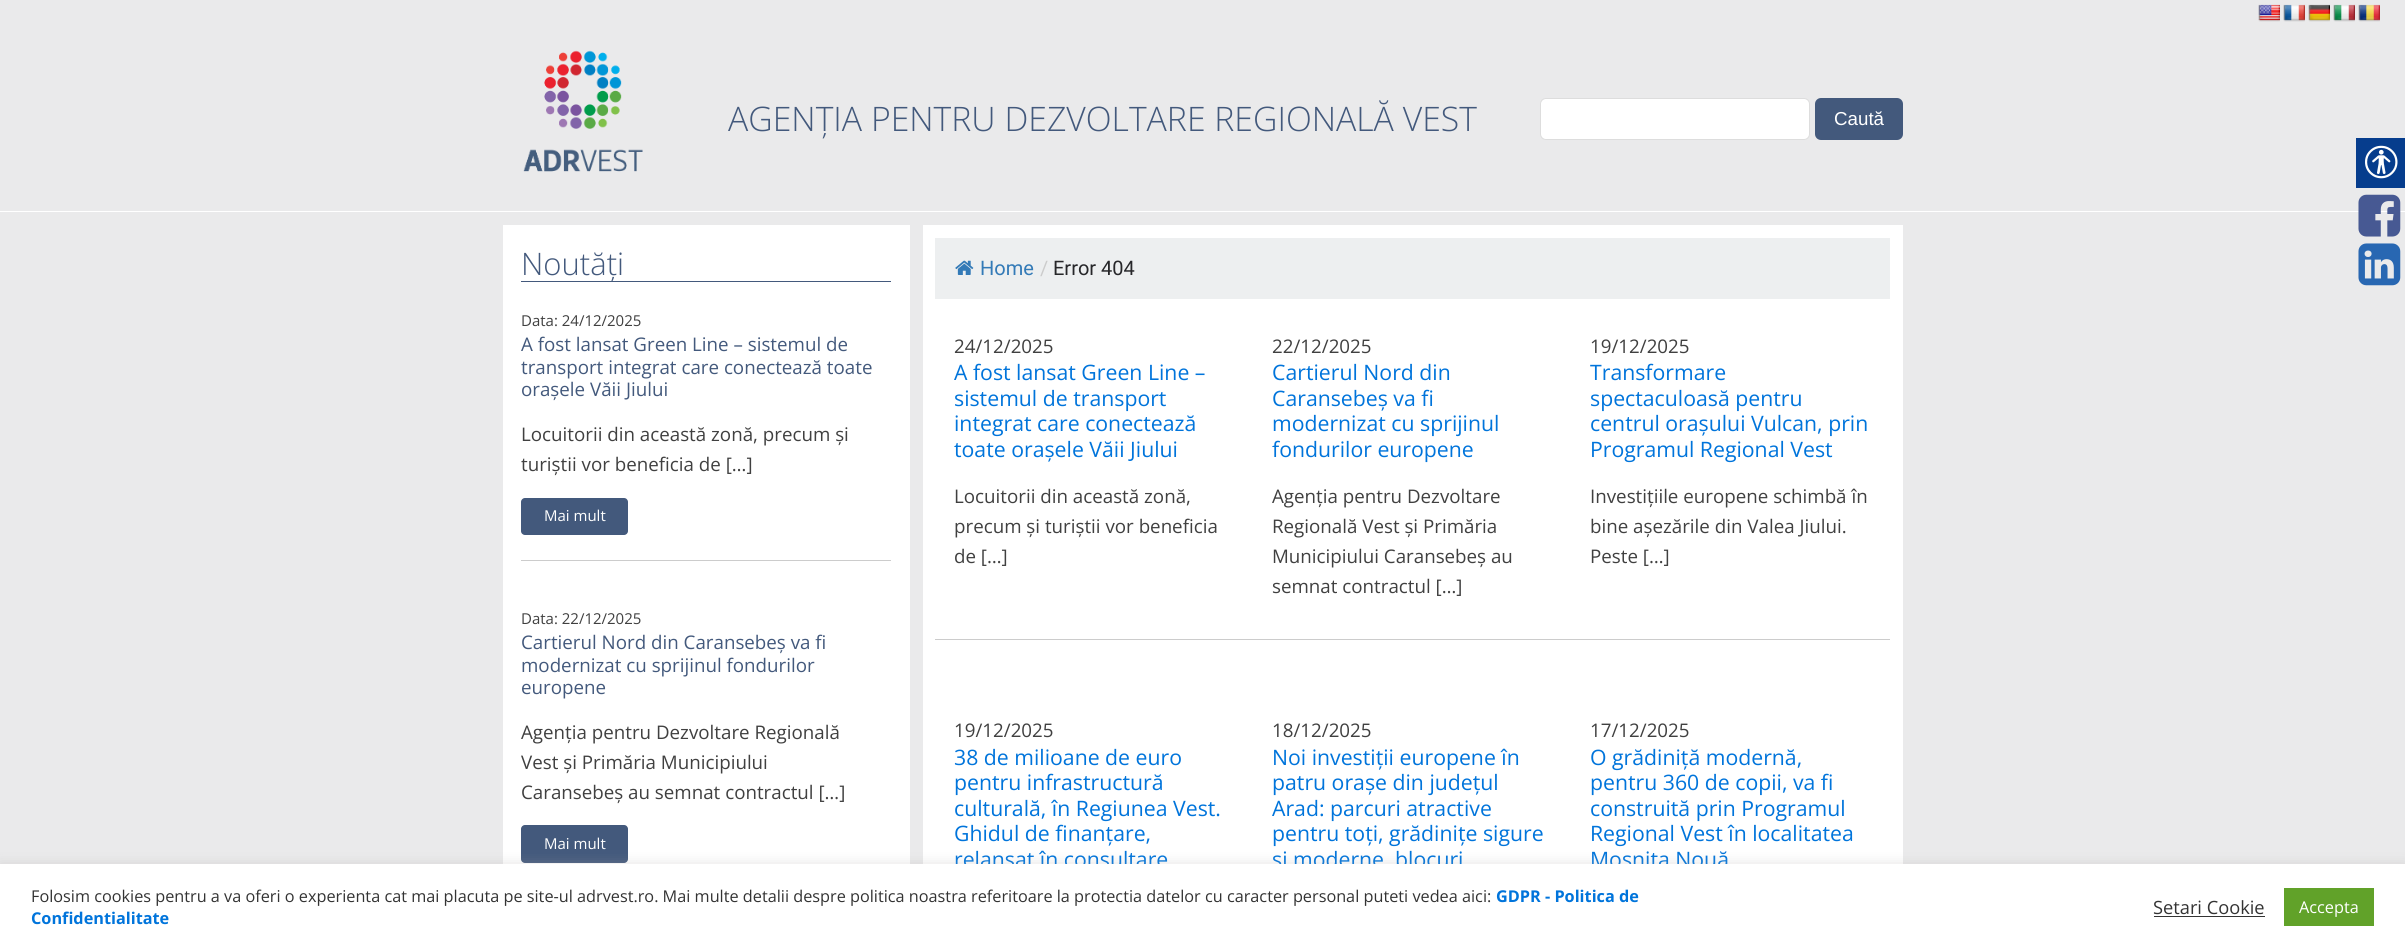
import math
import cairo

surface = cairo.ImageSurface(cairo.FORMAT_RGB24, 2405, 949)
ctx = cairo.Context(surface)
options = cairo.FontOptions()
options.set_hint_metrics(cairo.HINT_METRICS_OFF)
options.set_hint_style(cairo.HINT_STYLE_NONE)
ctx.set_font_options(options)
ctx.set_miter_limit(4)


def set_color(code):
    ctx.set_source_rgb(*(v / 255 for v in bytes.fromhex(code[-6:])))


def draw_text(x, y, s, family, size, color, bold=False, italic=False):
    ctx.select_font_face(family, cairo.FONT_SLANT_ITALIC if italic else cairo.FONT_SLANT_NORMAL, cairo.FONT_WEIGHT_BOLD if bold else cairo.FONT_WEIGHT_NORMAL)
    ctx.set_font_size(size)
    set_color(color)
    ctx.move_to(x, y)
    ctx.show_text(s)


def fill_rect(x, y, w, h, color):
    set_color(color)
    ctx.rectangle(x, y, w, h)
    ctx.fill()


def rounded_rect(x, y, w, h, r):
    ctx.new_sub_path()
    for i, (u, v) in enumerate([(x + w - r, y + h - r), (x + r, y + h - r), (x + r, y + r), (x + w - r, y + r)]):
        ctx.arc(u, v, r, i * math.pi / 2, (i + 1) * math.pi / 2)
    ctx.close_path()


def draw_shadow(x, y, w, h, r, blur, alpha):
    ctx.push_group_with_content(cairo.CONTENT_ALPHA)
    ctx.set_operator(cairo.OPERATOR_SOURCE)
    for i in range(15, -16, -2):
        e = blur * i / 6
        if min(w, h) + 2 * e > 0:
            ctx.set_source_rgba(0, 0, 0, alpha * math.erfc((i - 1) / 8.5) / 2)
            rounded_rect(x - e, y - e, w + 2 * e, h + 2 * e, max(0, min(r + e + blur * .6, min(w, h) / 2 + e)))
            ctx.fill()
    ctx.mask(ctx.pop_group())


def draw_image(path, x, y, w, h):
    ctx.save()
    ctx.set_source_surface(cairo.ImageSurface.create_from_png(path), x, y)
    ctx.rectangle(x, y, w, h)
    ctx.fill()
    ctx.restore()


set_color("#eaeaeb")
ctx.paint()
draw_image("assets/img1.png", 2258, 4, 22, 18)
draw_image("assets/img2.png", 2283, 4, 22, 18)
draw_image("assets/img3.png", 2308, 4, 22, 18)
draw_image("assets/img4.png", 2333, 4, 22, 18)
draw_image("assets/img5.png", 2358, 4, 22, 18)
fill_rect(0, 211, 2405, 1, "#ffffff")
draw_image("assets/img6.png", 523, 50, 120, 122)
draw_text(728, 131, "AGENȚIA PENTRU DEZVOLTARE REGIONALĂ VEST", "Open Sans Light", 33.75, "#43597c")
set_color("#ffffff")
rounded_rect(1540.5, 98.5, 269, 41, 5.5)
ctx.fill_preserve()
set_color("#dddddd")
ctx.set_line_width(1)
ctx.stroke()
set_color("#43597c")
rounded_rect(1815, 98, 88, 42, 6)
ctx.fill()
draw_text(1834, 125, "Caută", "Liberation Sans", 18.75, "#ffffff")
fill_rect(2356, 138, 49, 50, "#063d8d")
draw_image("assets/img7.png", 2365, 145, 33, 34)
draw_image("assets/img8.png", 2358, 194, 43, 43)
draw_image("assets/img9.png", 2358, 243, 43, 43)
fill_rect(503, 225, 407, 639, "#ffffff")
fill_rect(521, 281, 370, 1, "#43597c")
draw_text(521, 275, "Noutăți", "Open Sans Light", 31, "#43597c")
fill_rect(521, 560, 370, 1, "#cccccc")
draw_text(521, 326, "Data: 24/12/2025", "Open Sans", 15, "#404040")
draw_text(521, 351, "A fost lansat Green Line – sistemul de", "Open Sans", 18.75, "#43597c")
draw_text(521, 374, "transport integrat care conectează toate", "Open Sans", 18.75, "#43597c")
draw_text(521, 396, "orașele Văii Jiului", "Open Sans", 18.75, "#43597c")
draw_text(521, 441, "Locuitorii din această zonă, precum și", "Open Sans", 18.75, "#404040")
draw_text(521, 471, "turiștii vor beneficia de […]", "Open Sans", 18.75, "#404040")
set_color("#43597c")
rounded_rect(521, 498, 107, 37, 4)
ctx.fill()
draw_text(544, 521, "Mai mult", "Open Sans", 15, "#ffffff")
draw_text(521, 624, "Data: 22/12/2025", "Open Sans", 15, "#404040")
draw_text(521, 649, "Cartierul Nord din Caransebeș va fi", "Open Sans", 18.75, "#43597c")
draw_text(521, 672, "modernizat cu sprijinul fondurilor", "Open Sans", 18.75, "#43597c")
draw_text(521, 694, "europene", "Open Sans", 18.75, "#43597c")
draw_text(521, 739, "Agenția pentru Dezvoltare Regională", "Open Sans", 18.75, "#404040")
draw_text(521, 769, "Vest și Primăria Municipiului", "Open Sans", 18.75, "#404040")
draw_text(521, 799, "Caransebeș au semnat contractul […]", "Open Sans", 18.75, "#404040")
set_color("#43597c")
rounded_rect(521, 825, 107, 38, 4)
ctx.fill()
draw_text(544, 849, "Mai mult", "Open Sans", 15, "#ffffff")
fill_rect(923, 225, 980, 639, "#ffffff")
fill_rect(935, 238, 955, 61, "#edeff0")
draw_image("assets/img10.png", 955, 260, 19, 15)
draw_text(980, 275, "Home", "Roboto", 20, "#337ab7")
draw_text(1040, 275, "/", "Roboto", 20, "#cccccc")
draw_text(1053, 275, "Error 404", "Roboto", 20, "#27272a")
fill_rect(935, 639, 955, 1, "#cccccc")
draw_text(954, 353, "24/12/2025", "Open Sans", 18.75, "#404040")
draw_text(954, 380, "A fost lansat Green Line –", "Open Sans", 21.25, "#0074db")
draw_text(954, 406, "sistemul de transport", "Open Sans", 21.25, "#0074db")
draw_text(954, 431, "integrat care conectează", "Open Sans", 21.25, "#0074db")
draw_text(954, 457, "toate orașele Văii Jiului", "Open Sans", 21.25, "#0074db")
draw_text(954, 503, "Locuitorii din această zonă,", "Open Sans", 18.75, "#404040")
draw_text(954, 533, "precum și turiștii vor beneficia", "Open Sans", 18.75, "#404040")
draw_text(954, 563, "de […]", "Open Sans", 18.75, "#404040")
draw_text(1272, 353, "22/12/2025", "Open Sans", 18.75, "#404040")
draw_text(1272, 380, "Cartierul Nord din", "Open Sans", 21.25, "#0074db")
draw_text(1272, 406, "Caransebeș va fi", "Open Sans", 21.25, "#0074db")
draw_text(1272, 431, "modernizat cu sprijinul", "Open Sans", 21.25, "#0074db")
draw_text(1272, 457, "fondurilor europene", "Open Sans", 21.25, "#0074db")
draw_text(1272, 503, "Agenția pentru Dezvoltare", "Open Sans", 18.75, "#404040")
draw_text(1272, 533, "Regională Vest și Primăria", "Open Sans", 18.75, "#404040")
draw_text(1272, 563, "Municipiului Caransebeș au", "Open Sans", 18.75, "#404040")
draw_text(1272, 593, "semnat contractul […]", "Open Sans", 18.75, "#404040")
draw_text(1590, 353, "19/12/2025", "Open Sans", 18.75, "#404040")
draw_text(1590, 380, "Transformare", "Open Sans", 21.25, "#0074db")
draw_text(1590, 406, "spectaculoasă pentru", "Open Sans", 21.25, "#0074db")
draw_text(1590, 431, "centrul orașului Vulcan, prin", "Open Sans", 21.25, "#0074db")
draw_text(1590, 457, "Programul Regional Vest", "Open Sans", 21.25, "#0074db")
draw_text(1590, 503, "Investițiile europene schimbă în", "Open Sans", 18.75, "#404040")
draw_text(1590, 533, "bine așezările din Valea Jiului.", "Open Sans", 18.75, "#404040")
draw_text(1590, 563, "Peste […]", "Open Sans", 18.75, "#404040")
draw_text(954, 737, "19/12/2025", "Open Sans", 18.75, "#404040")
draw_text(954, 765, "38 de milioane de euro", "Open Sans", 21.25, "#0074db")
draw_text(954, 790, "pentru infrastructură", "Open Sans", 21.25, "#0074db")
draw_text(954, 816, "culturală, în Regiunea Vest.", "Open Sans", 21.25, "#0074db")
draw_text(954, 841, "Ghidul de finanțare,", "Open Sans", 21.25, "#0074db")
draw_text(954, 867, "relansat în consultare", "Open Sans", 21.25, "#0074db")
draw_text(1272, 737, "18/12/2025", "Open Sans", 18.75, "#404040")
draw_text(1272, 765, "Noi investiții europene în", "Open Sans", 21.25, "#0074db")
draw_text(1272, 790, "patru orașe din județul", "Open Sans", 21.25, "#0074db")
draw_text(1272, 816, "Arad: parcuri atractive", "Open Sans", 21.25, "#0074db")
draw_text(1272, 841, "pentru toți, grădinițe sigure", "Open Sans", 21.25, "#0074db")
draw_text(1272, 867, "și moderne, blocuri", "Open Sans", 21.25, "#0074db")
draw_text(1590, 737, "17/12/2025", "Open Sans", 18.75, "#404040")
draw_text(1590, 765, "O grădiniță modernă,", "Open Sans", 21.25, "#0074db")
draw_text(1590, 790, "pentru 360 de copii, va fi", "Open Sans", 21.25, "#0074db")
draw_text(1590, 816, "construită prin Programul", "Open Sans", 21.25, "#0074db")
draw_text(1590, 841, "Regional Vest în localitatea", "Open Sans", 21.25, "#0074db")
draw_text(1590, 867, "Moșnița Nouă", "Open Sans", 21.25, "#0074db")
set_color("#acabab")
draw_shadow(0, 863, 2405, 86, 0, 6, 0.3)
fill_rect(0, 864, 2405, 85, "#ffffff")
draw_text(31, 902, "Folosim cookies pentru a va oferi o experienta cat mai placuta pe site-ul adrvest.ro. Mai multe detalii despre politica noastra referitoare la protectia datelor cu caracter personal puteti vedea aici:", "Open Sans", 16.25, "#333333")
draw_text(1496, 902, "GDPR - Politica de", "Open Sans", 16.25, "#0074db", bold=True)
draw_text(31, 924, "Confidentialitate", "Open Sans", 16.25, "#0074db", bold=True)
draw_text(2153, 914, "Setari Cookie", "Open Sans", 18.25, "#333333")
fill_rect(2154, 916, 111, 1, "#333333")
fill_rect(2284, 888, 90, 38, "#61a229")
draw_text(2299, 913, "Accepta", "Open Sans", 16.25, "#ffffff")
surface.write_to_png("output.png")
